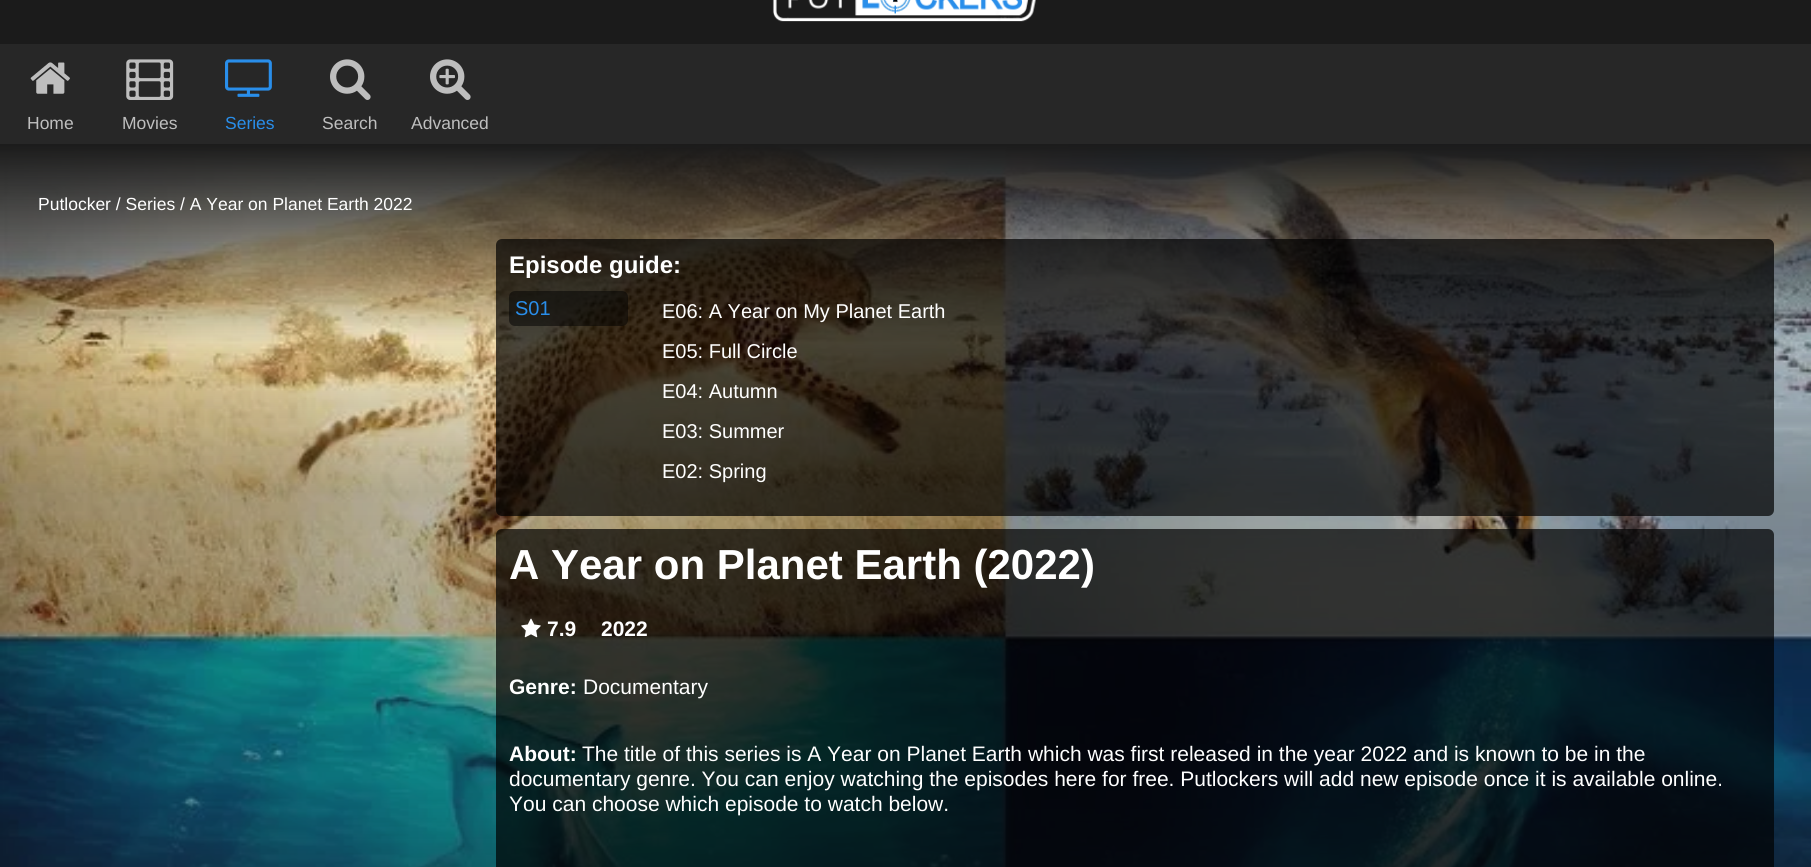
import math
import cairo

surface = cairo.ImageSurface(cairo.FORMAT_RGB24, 1811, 867)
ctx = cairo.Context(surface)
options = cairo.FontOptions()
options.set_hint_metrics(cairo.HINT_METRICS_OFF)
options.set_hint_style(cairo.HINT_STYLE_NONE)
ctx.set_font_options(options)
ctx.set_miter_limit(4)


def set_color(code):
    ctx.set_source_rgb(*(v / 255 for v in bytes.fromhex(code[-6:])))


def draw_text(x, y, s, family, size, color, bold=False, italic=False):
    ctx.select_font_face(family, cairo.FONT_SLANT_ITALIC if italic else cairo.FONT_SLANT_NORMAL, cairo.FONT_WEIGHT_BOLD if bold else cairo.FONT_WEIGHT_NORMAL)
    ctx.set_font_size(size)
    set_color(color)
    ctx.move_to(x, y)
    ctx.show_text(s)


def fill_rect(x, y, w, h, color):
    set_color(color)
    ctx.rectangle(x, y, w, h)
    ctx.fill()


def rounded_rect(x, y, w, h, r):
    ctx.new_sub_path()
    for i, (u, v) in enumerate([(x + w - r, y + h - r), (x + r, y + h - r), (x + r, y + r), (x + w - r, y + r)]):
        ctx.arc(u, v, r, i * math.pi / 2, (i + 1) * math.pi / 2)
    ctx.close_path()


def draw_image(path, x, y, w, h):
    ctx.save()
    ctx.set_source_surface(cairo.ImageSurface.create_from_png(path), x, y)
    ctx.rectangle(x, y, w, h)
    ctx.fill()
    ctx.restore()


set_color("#1b1b1b")
ctx.paint()
draw_image("assets/img1.png", 772, 0, 264, 22)
fill_rect(0, 44, 1811, 100, "#272727")
draw_image("assets/img2.png", 30, 62, 40, 32)
draw_text(27, 129, "Home", "Liberation Sans", 17.5, "#bebebe")
draw_image("assets/img3.png", 126, 59, 48, 41)
draw_text(122, 129, "Movies", "Liberation Sans", 17.5, "#bebebe")
draw_image("assets/img4.png", 225, 59, 47, 38)
draw_text(225, 129, "Series", "Liberation Sans", 17.5, "#298eea")
draw_image("assets/img5.png", 330, 59, 41, 41)
draw_text(322, 129, "Search", "Liberation Sans", 17.5, "#bebebe")
draw_image("assets/img6.png", 430, 59, 41, 41)
draw_text(411, 129, "Advanced", "Liberation Sans", 17.5, "#bebebe")
draw_image("assets/img7.png", 0, 144, 1811, 723)
draw_text(38, 210, "Putlocker / Series / A Year on Planet Earth 2022", "Liberation Sans", 17.5, "#ffffff")
ctx.set_source_rgba(0, 0, 0, 0.7)
rounded_rect(496, 239, 1278, 277, 6)
ctx.fill()
draw_text(509, 273, "Episode guide:", "Liberation Sans", 24, "#ffffff", bold=True)
ctx.set_source_rgba(0, 0, 0, 0.5)
rounded_rect(509, 291, 119, 35, 6)
ctx.fill()
draw_text(515, 315, "S01", "Liberation Sans", 20, "#298eea")
draw_text(662, 318, "E06: A Year on My Planet Earth", "Liberation Sans", 20, "#ffffff")
draw_text(662, 358, "E05: Full Circle", "Liberation Sans", 20, "#ffffff")
draw_text(662, 398, "E04: Autumn", "Liberation Sans", 20, "#ffffff")
draw_text(662, 438, "E03: Summer", "Liberation Sans", 20, "#ffffff")
draw_text(662, 478, "E02: Spring", "Liberation Sans", 20, "#ffffff")
ctx.set_source_rgba(0, 0, 0, 0.7)
rounded_rect(496, 529, 1278, 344, 6)
ctx.fill()
draw_text(509, 579, "A Year on Planet Earth (2022)", "Liberation Sans", 42, "#ffffff", bold=True)
draw_image("assets/img8.png", 521, 618, 20, 20)
draw_text(547, 636, "7.9", "Liberation Sans", 21, "#ffffff", bold=True)
draw_text(601, 636, "2022", "Liberation Sans", 21, "#ffffff", bold=True)
draw_text(509, 694, "Genre:", "Liberation Sans", 21, "#ffffff", bold=True)
draw_text(583, 694, "Documentary", "Liberation Sans", 21, "#ffffff")
draw_text(509, 761, "About:", "Liberation Sans", 21, "#ffffff", bold=True)
draw_text(582, 761, "The title of this series is A Year on Planet Earth which was first released in the year 2022 and is known to be in the", "Liberation Sans", 21, "#ffffff")
draw_text(509, 786, "documentary genre. You can enjoy watching the episodes here for free. Putlockers will add new episode once it is available online.", "Liberation Sans", 21, "#ffffff")
draw_text(509, 811, "You can choose which episode to watch below.", "Liberation Sans", 21, "#ffffff")
surface.write_to_png("output.png")
